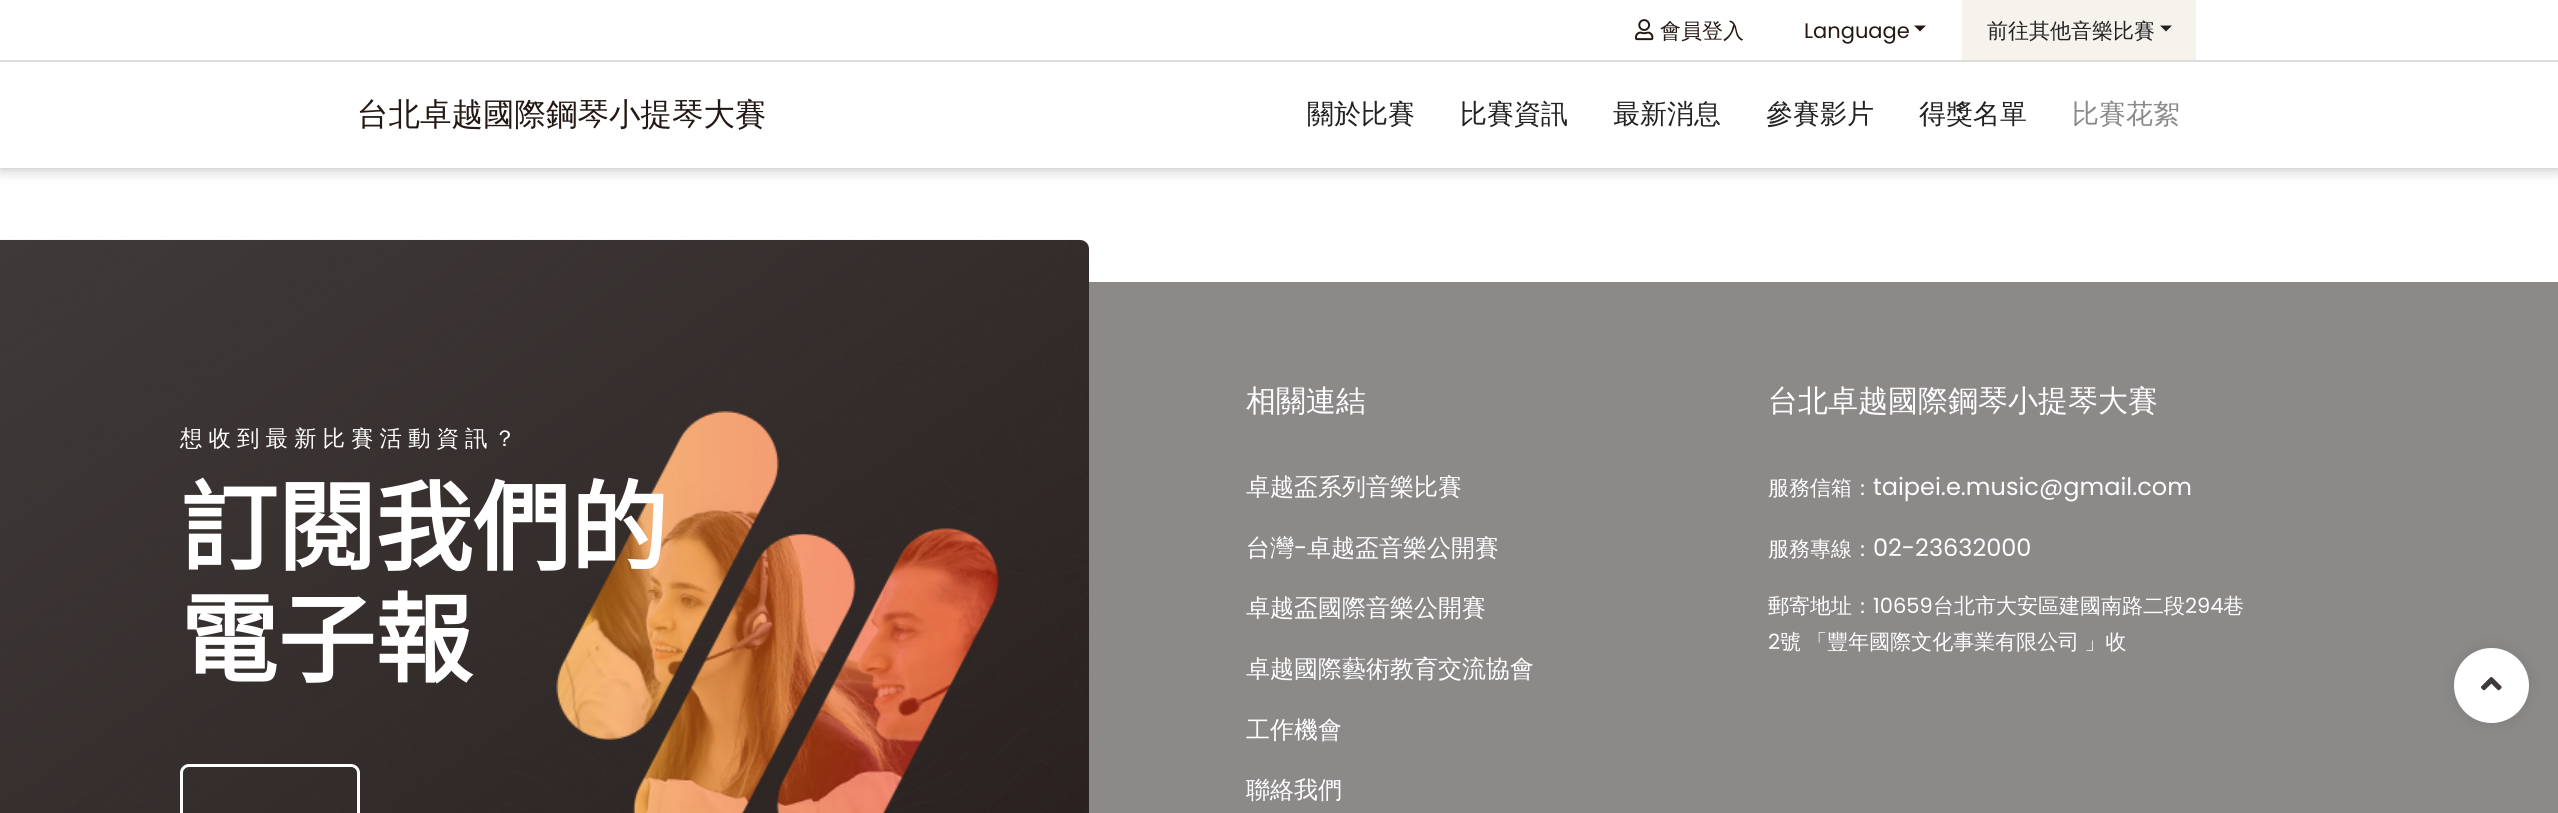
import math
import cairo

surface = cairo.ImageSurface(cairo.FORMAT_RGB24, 2558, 813)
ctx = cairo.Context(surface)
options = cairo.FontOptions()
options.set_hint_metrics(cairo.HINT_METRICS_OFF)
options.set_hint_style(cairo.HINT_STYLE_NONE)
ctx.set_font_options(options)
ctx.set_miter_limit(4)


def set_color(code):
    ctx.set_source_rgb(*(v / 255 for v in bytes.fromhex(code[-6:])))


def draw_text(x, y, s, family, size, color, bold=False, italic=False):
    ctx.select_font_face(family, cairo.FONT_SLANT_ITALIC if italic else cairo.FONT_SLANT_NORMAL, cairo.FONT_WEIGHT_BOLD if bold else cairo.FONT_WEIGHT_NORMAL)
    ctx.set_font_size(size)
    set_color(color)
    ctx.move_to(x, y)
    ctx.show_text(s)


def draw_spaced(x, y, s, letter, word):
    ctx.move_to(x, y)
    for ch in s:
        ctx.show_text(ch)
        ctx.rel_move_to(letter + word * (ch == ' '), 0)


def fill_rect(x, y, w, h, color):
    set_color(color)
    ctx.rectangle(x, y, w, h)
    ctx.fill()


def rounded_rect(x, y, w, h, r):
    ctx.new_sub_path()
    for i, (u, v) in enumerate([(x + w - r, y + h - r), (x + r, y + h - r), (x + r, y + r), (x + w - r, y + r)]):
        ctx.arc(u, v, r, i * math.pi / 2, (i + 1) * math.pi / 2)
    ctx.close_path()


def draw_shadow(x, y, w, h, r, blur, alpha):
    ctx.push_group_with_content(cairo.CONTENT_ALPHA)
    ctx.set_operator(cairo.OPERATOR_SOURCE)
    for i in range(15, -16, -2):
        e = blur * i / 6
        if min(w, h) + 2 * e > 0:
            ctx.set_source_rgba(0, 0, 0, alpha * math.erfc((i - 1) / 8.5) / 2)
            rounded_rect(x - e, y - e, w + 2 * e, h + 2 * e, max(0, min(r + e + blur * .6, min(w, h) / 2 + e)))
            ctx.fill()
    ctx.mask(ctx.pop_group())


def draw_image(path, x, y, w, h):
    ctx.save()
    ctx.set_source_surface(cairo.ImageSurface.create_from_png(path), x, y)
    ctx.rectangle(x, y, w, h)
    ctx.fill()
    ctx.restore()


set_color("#ffffff")
ctx.paint()
set_color("#000000")
draw_shadow(0, 0, 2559, 168, 0, 7.5, 0.3)
fill_rect(0, 0, 2558, 168, "#ffffff")
fill_rect(0, 60, 2558, 2, "#dddddd")
draw_image("assets/img1.png", 1635, 19, 19, 22)
draw_text(1660, 38, "會員登入", "WenQuanYi Zen Hei Medium", 21, "#231814")
draw_text(1804, 38, "Language", "Poppins", 21, "#231814")
ctx.new_path()
ctx.move_to(1914, 25.5)
ctx.line_to(1926, 25.5)
ctx.line_to(1920, 31.5)
ctx.close_path()
ctx.fill()
fill_rect(1962, 0, 234, 60, "#f6f3ed")
draw_text(1987, 38, "前往其他音樂比賽", "WenQuanYi Zen Hei Medium", 21, "#222222")
ctx.new_path()
ctx.move_to(2160, 25.5)
ctx.line_to(2172, 25.5)
ctx.line_to(2166, 31.5)
ctx.close_path()
ctx.fill()
draw_text(357, 125, "台北卓越國際鋼琴小提琴⼤賽", "WenQuanYi Zen Hei Medium", 31.5, "#231814")
draw_text(1307, 123, "關於比賽", "WenQuanYi Zen Hei Medium", 27, "#222222")
draw_text(1460, 123, "比賽資訊", "WenQuanYi Zen Hei Medium", 27, "#222222")
draw_text(1613, 123, "最新消息", "WenQuanYi Zen Hei Medium", 27, "#222222")
draw_text(1766, 123, "參賽影片", "WenQuanYi Zen Hei Medium", 27, "#222222")
draw_text(1919, 123, "得獎名單", "WenQuanYi Zen Hei Medium", 27, "#222222")
draw_text(2072, 123, "比賽花絮", "WenQuanYi Zen Hei Medium", 27, "#8c8989")
gradient = cairo.LinearGradient(178, 115, 911, 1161)
gradient.add_color_stop_rgba(0, 0.251, 0.227, 0.227, 1)
gradient.add_color_stop_rgba(1, 0.137, 0.094, 0.078, 1)
ctx.set_source(gradient)
ctx.new_path()
ctx.move_to(0, 240)
ctx.line_to(1080, 240)
ctx.curve_to(1085, 240, 1089, 244, 1089, 249)
ctx.line_to(1089, 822)
ctx.line_to(0, 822)
ctx.close_path()
ctx.fill()
draw_image("assets/img2.png", 0, 239, 1089, 574)
ctx.set_font_size(22.5)
set_color("#ffffff")
draw_spaced(180, 446, "想收到最新比賽活動資訊？", 6, 0)
draw_image("assets/img3.png", 556, 411, 443, 402)
draw_text(180, 563, "訂閱我們的", "Noto Sans CJK TC", 97.5, "#ffffff", bold=True)
draw_text(180, 675, "電子報", "Noto Sans CJK TC", 97.5, "#ffffff", bold=True)
rounded_rect(181.5, 765.5, 177, 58, 7.5)
ctx.set_line_width(3)
ctx.stroke()
fill_rect(1089, 282, 1469, 531, "#8c8989")
draw_text(1246, 411, "相關連結", "WenQuanYi Zen Hei Medium", 30, "#ffffff")
draw_text(1246, 495, "卓越盃系列音樂比賽", "WenQuanYi Zen Hei Medium", 24, "#ffffff")
draw_text(1246, 556, "台灣", "WenQuanYi Zen Hei Medium", 24, "#ffffff")
draw_text(1294, 556, "-", "Poppins", 24, "#ffffff")
draw_text(1307, 556, "卓越盃音樂公開賽", "WenQuanYi Zen Hei Medium", 24, "#ffffff")
draw_text(1246, 616, "卓越盃國際⾳樂公開賽", "WenQuanYi Zen Hei Medium", 24, "#ffffff")
draw_text(1246, 677, "卓越國際藝術教育交流協會", "WenQuanYi Zen Hei Medium", 24, "#ffffff")
draw_text(1246, 738, "工作機會", "WenQuanYi Zen Hei Medium", 24, "#ffffff")
draw_text(1246, 798, "聯絡我們", "WenQuanYi Zen Hei Medium", 24, "#ffffff")
draw_text(1768, 411, "台北卓越國際鋼琴小提琴⼤賽", "WenQuanYi Zen Hei Medium", 30, "#ffffff")
draw_text(1768, 495, "服務信箱：", "WenQuanYi Zen Hei Medium", 21, "#ffffff")
draw_text(1873, 495, "taipei.e.music@gmail.com", "Poppins", 24, "#ffffff")
draw_text(1768, 556, "服務專線：", "WenQuanYi Zen Hei Medium", 21, "#ffffff")
draw_text(1873, 556, "02-23632000", "Poppins", 24, "#ffffff")
draw_text(1768, 613, "郵寄地址：", "WenQuanYi Zen Hei Medium", 21, "#ffffff")
draw_text(1873, 613, "10659", "Poppins", 21, "#ffffff")
draw_text(1933, 613, "台北市大安區建國南路二段", "WenQuanYi Zen Hei Medium", 21, "#ffffff")
draw_text(2185, 613, "294", "Poppins", 21, "#ffffff")
draw_text(2223, 613, "巷", "WenQuanYi Zen Hei Medium", 21, "#ffffff")
draw_text(1768, 649, "2", "Poppins", 21, "#ffffff")
ctx.select_font_face("WenQuanYi Zen Hei Medium")
draw_spaced(1780, 649, "號 「豐年國際文化事業有限公司 」收", 0, -1)
set_color("#000000")
draw_shadow(2454, 648, 75, 75, 37.5, 7.5, 0.1)
set_color("#ffffff")
ctx.arc(2491.5, 685.5, 37.5, 0, 2 * math.pi)
ctx.fill()
draw_image("assets/img4.png", 2481, 677, 21, 14)
surface.write_to_png("output.png")
